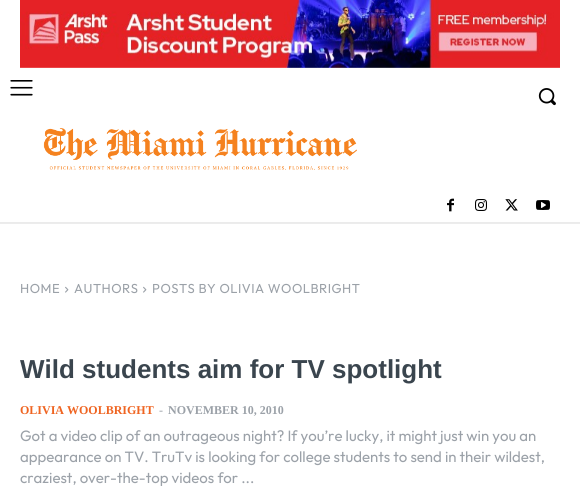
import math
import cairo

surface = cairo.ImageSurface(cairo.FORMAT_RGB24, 580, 488)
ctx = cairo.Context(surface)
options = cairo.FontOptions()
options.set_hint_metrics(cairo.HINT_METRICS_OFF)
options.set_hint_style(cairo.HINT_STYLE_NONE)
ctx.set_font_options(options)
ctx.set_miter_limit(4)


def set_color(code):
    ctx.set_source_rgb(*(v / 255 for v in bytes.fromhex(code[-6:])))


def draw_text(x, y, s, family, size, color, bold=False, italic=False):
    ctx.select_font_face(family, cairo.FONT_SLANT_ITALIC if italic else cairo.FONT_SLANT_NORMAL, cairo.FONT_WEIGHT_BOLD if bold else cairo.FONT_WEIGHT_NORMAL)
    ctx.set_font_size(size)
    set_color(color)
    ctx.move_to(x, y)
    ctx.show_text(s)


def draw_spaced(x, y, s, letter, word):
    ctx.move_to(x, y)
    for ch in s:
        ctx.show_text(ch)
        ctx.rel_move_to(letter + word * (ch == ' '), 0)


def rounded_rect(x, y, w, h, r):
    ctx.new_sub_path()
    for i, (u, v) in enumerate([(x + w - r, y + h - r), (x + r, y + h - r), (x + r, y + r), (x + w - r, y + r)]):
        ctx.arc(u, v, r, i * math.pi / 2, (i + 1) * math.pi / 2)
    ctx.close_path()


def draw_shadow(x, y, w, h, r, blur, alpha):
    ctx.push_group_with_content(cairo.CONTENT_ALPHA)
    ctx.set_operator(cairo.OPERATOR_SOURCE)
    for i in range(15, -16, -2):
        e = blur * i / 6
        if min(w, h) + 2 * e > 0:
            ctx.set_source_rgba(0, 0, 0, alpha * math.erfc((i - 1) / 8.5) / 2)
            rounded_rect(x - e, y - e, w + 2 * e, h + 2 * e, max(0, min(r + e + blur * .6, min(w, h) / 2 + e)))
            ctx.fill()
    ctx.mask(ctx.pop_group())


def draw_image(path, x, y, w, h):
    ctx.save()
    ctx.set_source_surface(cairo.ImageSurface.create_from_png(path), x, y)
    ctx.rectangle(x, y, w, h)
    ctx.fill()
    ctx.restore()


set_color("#ffffff")
ctx.paint()
draw_image("assets/img1.png", 20, 0, 540, 68)
draw_image("assets/img2.png", 10, 80, 23, 16)
draw_image("assets/img3.png", 538, 88, 18, 18)
draw_image("assets/img4.png", 43, 128, 314, 42)
draw_image("assets/img5.png", 447, 198, 7, 14)
draw_image("assets/img6.png", 475, 199, 12, 12)
draw_image("assets/img7.png", 505, 199, 13, 12)
draw_image("assets/img8.png", 536, 200, 14, 10)
ctx.save()
ctx.rectangle(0, 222, 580, 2)
ctx.clip()
set_color("#000000")
draw_shadow(-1, 0, 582, 224, 0, 0.5, 0.08)
ctx.restore()
ctx.select_font_face("Outfit")
ctx.set_font_size(13)
set_color("#9ba1a8")
draw_spaced(20, 293, "HOME", 0.5, 0)
draw_image("assets/img9.png", 65, 286, 4, 7)
draw_spaced(74, 293, "AUTHORS", 0.5, 0)
draw_image("assets/img9.png", 143, 286, 4, 7)
draw_spaced(152, 293, "POSTS BY OLIVIA WOOLBRIGHT", 0.5, 0)
draw_text(20, 378, "Wild students aim for TV spotlight", "Liberation Sans", 26, "#3a454e", bold=True)
draw_text(20, 414, "OLIVIA WOOLBRIGHT", "Liberation Serif", 12, "#ef6421", bold=True)
draw_text(159, 414, "-", "Liberation Serif", 12, "#9ba1a8")
draw_text(168, 414, "NOVEMBER 10, 2010", "Liberation Serif", 12, "#9ba1a8", bold=True)
draw_text(20, 441, "Got a video clip of an outrageous night? If you’re lucky, it might just win you an", "Outfit", 15, "#9ba1a8")
draw_text(20, 462, "appearance on TV. TruTv is looking for college students to send in their wildest,", "Outfit", 15, "#9ba1a8")
draw_text(20, 483, "craziest, over-the-top videos for ...", "Outfit", 15, "#9ba1a8")
surface.write_to_png("output.png")
